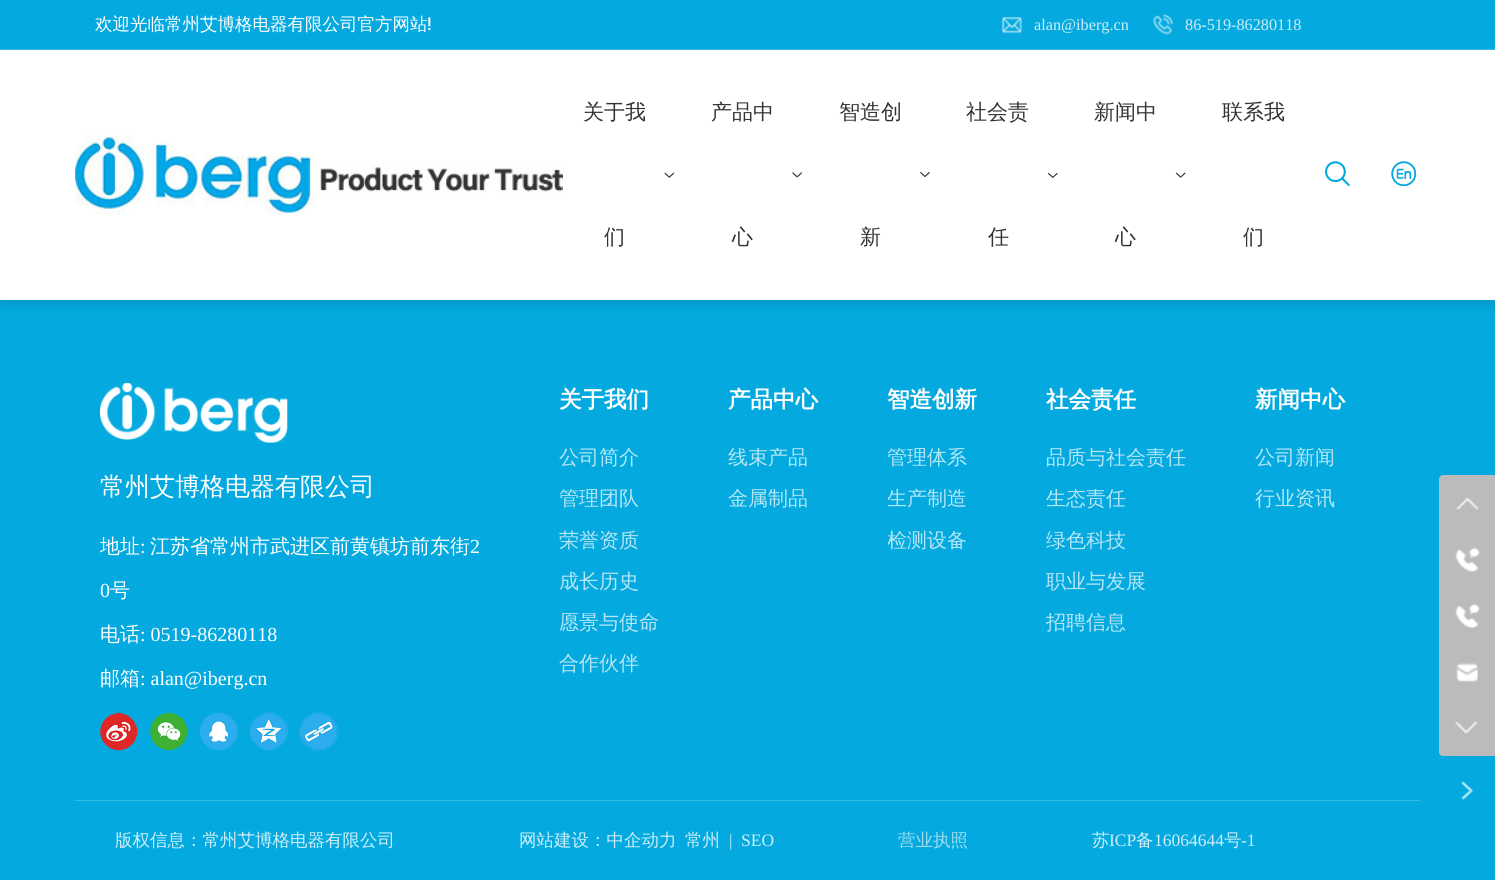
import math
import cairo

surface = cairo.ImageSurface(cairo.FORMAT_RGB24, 1495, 880)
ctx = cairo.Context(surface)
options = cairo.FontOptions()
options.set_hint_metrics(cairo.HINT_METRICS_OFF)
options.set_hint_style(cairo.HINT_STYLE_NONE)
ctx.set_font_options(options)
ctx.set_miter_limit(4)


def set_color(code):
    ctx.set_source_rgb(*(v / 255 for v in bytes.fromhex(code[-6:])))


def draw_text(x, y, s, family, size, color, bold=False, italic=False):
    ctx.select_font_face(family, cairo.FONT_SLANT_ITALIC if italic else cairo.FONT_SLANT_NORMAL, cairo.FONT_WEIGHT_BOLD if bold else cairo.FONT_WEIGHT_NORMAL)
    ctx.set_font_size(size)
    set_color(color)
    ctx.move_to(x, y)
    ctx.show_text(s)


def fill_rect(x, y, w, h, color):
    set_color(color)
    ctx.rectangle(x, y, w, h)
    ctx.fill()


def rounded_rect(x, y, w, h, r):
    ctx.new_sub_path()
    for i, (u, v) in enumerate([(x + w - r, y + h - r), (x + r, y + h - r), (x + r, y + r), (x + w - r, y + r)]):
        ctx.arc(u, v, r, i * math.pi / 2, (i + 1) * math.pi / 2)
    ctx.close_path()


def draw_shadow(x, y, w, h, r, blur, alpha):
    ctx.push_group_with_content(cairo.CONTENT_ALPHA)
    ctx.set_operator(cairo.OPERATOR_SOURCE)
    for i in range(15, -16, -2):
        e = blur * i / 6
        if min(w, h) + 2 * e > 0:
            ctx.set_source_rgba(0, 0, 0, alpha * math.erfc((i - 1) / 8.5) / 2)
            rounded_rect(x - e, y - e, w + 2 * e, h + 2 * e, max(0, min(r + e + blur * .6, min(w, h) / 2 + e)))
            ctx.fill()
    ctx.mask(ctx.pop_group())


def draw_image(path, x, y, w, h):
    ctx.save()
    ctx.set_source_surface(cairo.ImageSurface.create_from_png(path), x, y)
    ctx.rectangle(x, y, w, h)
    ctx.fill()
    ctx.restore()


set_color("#04aadf")
ctx.paint()
set_color("#000000")
draw_shadow(0, 0, 1495, 300, 0, 9.5, 0.2)
fill_rect(0, 50, 1495, 250, "#ffffff")
fill_rect(0, 0, 1495, 49, "#04aadf")
fill_rect(0, 49, 1495, 1, "#36bbe5")
draw_text(95, 30, "欢迎光临常州艾博格电器有限公司官方网站", "WenQuanYi Zen Hei Medium", 17.5, "#ffffff")
draw_text(427, 30, "!", "Roboto Medium", 17.5, "#ffffff")
draw_image("assets/img1.png", 1002, 17, 20, 17)
draw_text(1034, 30, "alan@iberg.cn", "Liberation Serif", 16.25, "#cdeef9")
draw_image("assets/img2.png", 1153, 14, 20, 21)
draw_text(1185, 30, "86-519-86280118", "Liberation Serif", 16.25, "#cdeef9")
draw_image("assets/img3.png", 75, 135, 488, 80)
draw_text(583, 119, "关于我", "WenQuanYi Zen Hei Medium", 21, "#333333")
draw_text(604, 244, "们", "WenQuanYi Zen Hei Medium", 21, "#333333")
draw_image("assets/img4.png", 664, 172, 11, 6)
draw_text(711, 119, "产品中", "WenQuanYi Zen Hei Medium", 21, "#333333")
draw_text(732, 244, "心", "WenQuanYi Zen Hei Medium", 21, "#333333")
draw_image("assets/img5.png", 792, 172, 10, 6)
draw_text(839, 119, "智造创", "WenQuanYi Zen Hei Medium", 21, "#333333")
draw_text(860, 244, "新", "WenQuanYi Zen Hei Medium", 21, "#333333")
draw_image("assets/img6.png", 920, 172, 10, 5)
draw_text(966, 119, "社会责", "WenQuanYi Zen Hei Medium", 21, "#333333")
draw_text(988, 244, "任", "WenQuanYi Zen Hei Medium", 21, "#333333")
draw_image("assets/img7.png", 1048, 173, 10, 5)
draw_text(1094, 119, "新闻中", "WenQuanYi Zen Hei Medium", 21, "#333333")
draw_text(1115, 244, "心", "WenQuanYi Zen Hei Medium", 21, "#333333")
draw_image("assets/img8.png", 1175, 172, 11, 6)
draw_text(1222, 119, "联系我", "WenQuanYi Zen Hei Medium", 21, "#333333")
draw_text(1243, 244, "们", "WenQuanYi Zen Hei Medium", 21, "#333333")
draw_image("assets/img9.png", 1325, 161, 25, 25)
draw_image("assets/img10.png", 1391, 161, 25, 25)
draw_image("assets/img11.png", 100, 382, 188, 61)
draw_text(100, 495, "常州艾博格电器有限公司", "WenQuanYi Zen Hei Medium", 25, "#ffffff")
draw_text(100, 553, "地址", "WenQuanYi Zen Hei Medium", 20, "#ffffff")
draw_text(140, 553, ":", "Liberation Serif", 20, "#ffffff")
draw_text(150, 553, "江苏省常州市武进区前黄镇坊前东街", "WenQuanYi Zen Hei Medium", 20, "#ffffff")
draw_text(470, 553, "2", "Liberation Serif", 20, "#ffffff")
draw_text(100, 597, "0", "Liberation Serif", 20, "#ffffff")
draw_text(110, 597, "号", "WenQuanYi Zen Hei Medium", 20, "#ffffff")
draw_text(100, 641, "电话", "WenQuanYi Zen Hei Medium", 20, "#ffffff")
draw_text(140, 641, ": 0519-86280118", "Liberation Serif", 20, "#ffffff")
draw_text(100, 685, "邮箱", "WenQuanYi Zen Hei Medium", 20, "#ffffff")
draw_text(140, 685, ": alan@iberg.cn", "Liberation Serif", 20, "#ffffff")
draw_image("assets/img12.png", 100, 712, 38, 39)
draw_image("assets/img13.png", 150, 712, 38, 39)
draw_image("assets/img14.png", 200, 712, 38, 39)
draw_image("assets/img15.png", 250, 712, 38, 39)
draw_image("assets/img16.png", 300, 712, 38, 39)
draw_text(559, 407, "关于我们", "WenQuanYi Zen Hei", 22.5, "#ffffff", bold=True)
draw_text(559, 464, "公司简介", "WenQuanYi Zen Hei Medium", 20, "#b4e6f5")
draw_text(559, 505, "管理团队", "WenQuanYi Zen Hei Medium", 20, "#b4e6f5")
draw_text(559, 547, "荣誉资质", "WenQuanYi Zen Hei Medium", 20, "#b4e6f5")
draw_text(559, 588, "成长历史", "WenQuanYi Zen Hei Medium", 20, "#b4e6f5")
ctx.save()
ctx.rectangle(559, 613, 131, 20)
ctx.clip()
draw_text(559, 629, "愿景与使命", "WenQuanYi Zen Hei Medium", 20, "#b4e6f5")
ctx.restore()
draw_text(559, 670, "合作伙伴", "WenQuanYi Zen Hei Medium", 20, "#b4e6f5")
draw_text(728, 407, "产品中心", "WenQuanYi Zen Hei", 22.5, "#ffffff", bold=True)
ctx.save()
ctx.rectangle(728, 448, 122, 20)
ctx.clip()
draw_text(728, 464, "线束产品", "WenQuanYi Zen Hei Medium", 20, "#b4e6f5")
ctx.restore()
ctx.save()
ctx.rectangle(728, 489, 122, 20)
ctx.clip()
draw_text(728, 505, "金属制品", "WenQuanYi Zen Hei Medium", 20, "#b4e6f5")
ctx.restore()
draw_text(887, 407, "智造创新", "WenQuanYi Zen Hei", 22.5, "#ffffff", bold=True)
ctx.save()
ctx.rectangle(888, 448, 121, 20)
ctx.clip()
draw_text(887, 464, "管理体系", "WenQuanYi Zen Hei Medium", 20, "#b4e6f5")
ctx.restore()
ctx.save()
ctx.rectangle(888, 489, 121, 20)
ctx.clip()
draw_text(887, 505, "生产制造", "WenQuanYi Zen Hei Medium", 20, "#b4e6f5")
ctx.restore()
ctx.save()
ctx.rectangle(888, 530, 121, 20)
ctx.clip()
draw_text(887, 547, "检测设备", "WenQuanYi Zen Hei Medium", 20, "#b4e6f5")
ctx.restore()
draw_text(1046, 407, "社会责任", "WenQuanYi Zen Hei", 22.5, "#ffffff", bold=True)
ctx.save()
ctx.rectangle(1046, 448, 172, 20)
ctx.clip()
draw_text(1046, 464, "品质与社会责任", "WenQuanYi Zen Hei Medium", 20, "#b4e6f5")
ctx.restore()
ctx.save()
ctx.rectangle(1046, 489, 172, 20)
ctx.clip()
draw_text(1046, 505, "生态责任", "WenQuanYi Zen Hei Medium", 20, "#b4e6f5")
ctx.restore()
draw_text(1046, 547, "绿色科技", "WenQuanYi Zen Hei Medium", 20, "#b4e6f5")
draw_text(1046, 588, "职业与发展", "WenQuanYi Zen Hei Medium", 20, "#b4e6f5")
ctx.save()
ctx.rectangle(1046, 613, 172, 20)
ctx.clip()
draw_text(1046, 629, "招聘信息", "WenQuanYi Zen Hei Medium", 20, "#b4e6f5")
ctx.restore()
draw_text(1255, 407, "新闻中心", "WenQuanYi Zen Hei", 22.5, "#ffffff", bold=True)
draw_text(1255, 464, "公司新闻", "WenQuanYi Zen Hei Medium", 20, "#b4e6f5")
ctx.save()
ctx.rectangle(1255, 489, 121, 20)
ctx.clip()
draw_text(1255, 505, "行业资讯", "WenQuanYi Zen Hei Medium", 20, "#b4e6f5")
ctx.restore()
fill_rect(75, 800, 1345, 1, "#36bbe5")
draw_text(115, 846, "版权信息：常州艾博格电器有限公司", "WenQuanYi Zen Hei Medium", 17.5, "#cdeef9")
draw_text(519, 846, "网站建设：中企动力", "WenQuanYi Zen Hei Medium", 17.5, "#cdeef9")
draw_text(685, 846, "常州", "WenQuanYi Zen Hei Medium", 17.5, "#cdeef9")
draw_text(729, 846, "|", "Liberation Serif", 17.5, "#cdeef9")
draw_text(741, 846, "SEO", "Liberation Serif", 17.5, "#cdeef9")
draw_text(898, 846, "营业执照", "WenQuanYi Zen Hei Medium", 17.5, "#9bddf2")
draw_text(1092, 846, "苏", "WenQuanYi Zen Hei Medium", 17.5, "#cdeef9")
draw_text(1109, 846, "ICP", "Liberation Serif", 17.5, "#cdeef9")
draw_text(1136, 846, "备", "WenQuanYi Zen Hei Medium", 17.5, "#cdeef9")
draw_text(1154, 846, "16064644", "Liberation Serif", 17.5, "#cdeef9")
draw_text(1224, 846, "号", "WenQuanYi Zen Hei Medium", 17.5, "#cdeef9")
draw_text(1241, 846, "-1", "Liberation Serif", 17.5, "#cdeef9")
set_color("#bbbbbb")
ctx.new_path()
ctx.move_to(1443, 475)
ctx.line_to(1495, 475)
ctx.line_to(1495, 756)
ctx.line_to(1443, 756)
ctx.curve_to(1441, 756, 1439, 754, 1439, 752)
ctx.line_to(1439, 479)
ctx.curve_to(1439, 477, 1441, 475, 1443, 475)
ctx.close_path()
ctx.fill()
draw_image("assets/img17.png", 1456, 497, 23, 13)
draw_image("assets/img18.png", 1455, 547, 25, 25)
draw_image("assets/img19.png", 1455, 604, 25, 24)
draw_image("assets/img20.png", 1456, 663, 22, 19)
draw_image("assets/img21.png", 1455, 721, 23, 13)
draw_image("assets/img22.png", 1460, 781, 13, 19)
surface.write_to_png("output.png")
